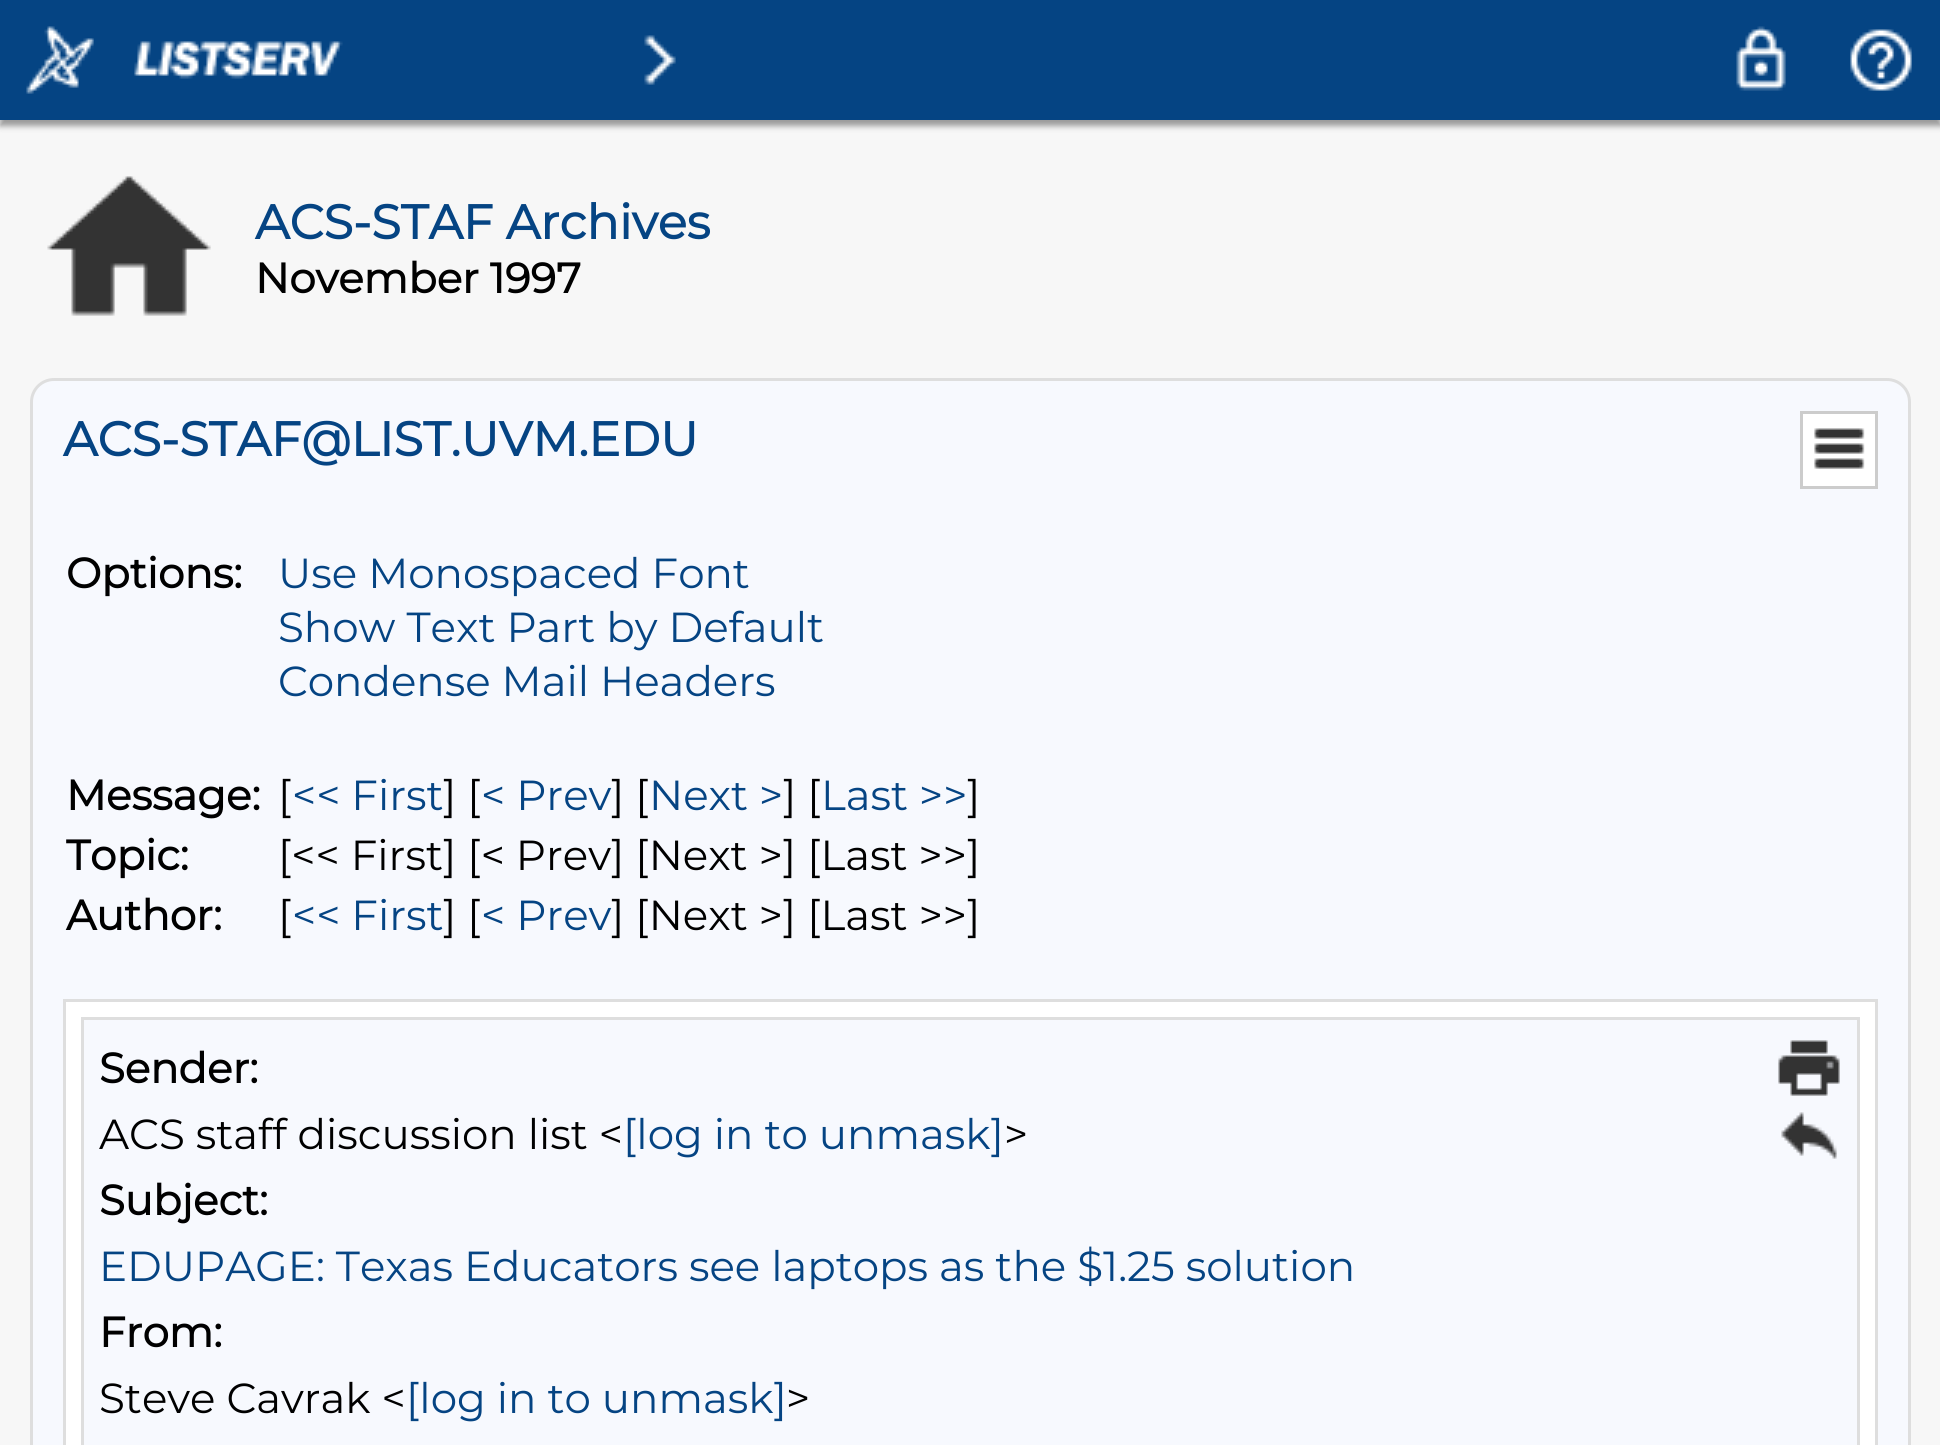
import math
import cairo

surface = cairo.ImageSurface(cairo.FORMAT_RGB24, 1940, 1445)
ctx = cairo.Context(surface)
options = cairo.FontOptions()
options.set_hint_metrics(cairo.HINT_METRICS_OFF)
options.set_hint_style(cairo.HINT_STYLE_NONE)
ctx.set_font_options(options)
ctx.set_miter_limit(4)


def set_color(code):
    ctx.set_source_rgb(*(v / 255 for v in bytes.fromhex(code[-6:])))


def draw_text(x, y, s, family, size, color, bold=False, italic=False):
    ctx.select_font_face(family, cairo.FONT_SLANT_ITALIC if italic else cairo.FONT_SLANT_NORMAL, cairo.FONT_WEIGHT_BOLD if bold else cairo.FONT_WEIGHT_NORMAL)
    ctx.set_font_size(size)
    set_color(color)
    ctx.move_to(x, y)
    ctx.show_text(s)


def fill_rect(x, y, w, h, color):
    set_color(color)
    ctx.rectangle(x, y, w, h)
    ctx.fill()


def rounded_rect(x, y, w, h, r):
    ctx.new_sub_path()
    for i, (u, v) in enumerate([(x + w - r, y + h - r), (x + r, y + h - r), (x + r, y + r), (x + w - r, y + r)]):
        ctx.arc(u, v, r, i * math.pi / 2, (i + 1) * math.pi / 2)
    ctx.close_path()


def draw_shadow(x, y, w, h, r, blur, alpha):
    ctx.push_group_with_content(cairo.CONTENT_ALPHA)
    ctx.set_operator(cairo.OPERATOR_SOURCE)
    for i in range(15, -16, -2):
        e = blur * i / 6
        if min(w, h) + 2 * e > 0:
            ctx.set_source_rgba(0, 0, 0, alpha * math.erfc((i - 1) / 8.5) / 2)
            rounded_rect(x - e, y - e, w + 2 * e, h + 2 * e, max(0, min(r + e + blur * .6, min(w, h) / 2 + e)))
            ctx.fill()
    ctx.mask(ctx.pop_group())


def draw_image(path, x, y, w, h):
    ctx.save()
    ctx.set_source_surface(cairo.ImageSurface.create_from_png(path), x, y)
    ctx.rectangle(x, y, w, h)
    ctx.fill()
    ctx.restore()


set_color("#f7f7f7")
ctx.paint()
set_color("#999999")
draw_shadow(0, 6, 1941, 120, 0, 3, 1)
fill_rect(0, 0, 1940, 120, "#054483")
draw_image("assets/img1.png", 26, 26, 68, 68)
draw_image("assets/img2.png", 134, 41, 209, 38)
draw_image("assets/img3.png", 644, 35, 32, 50)
draw_image("assets/img4.png", 1736, 26, 50, 65)
draw_image("assets/img5.png", 1850, 29, 62, 62)
draw_image("assets/img6.png", 47, 176, 164, 140)
draw_text(255, 239, "ACS-STAF Archives", "Montserrat", 48, "#054483", bold=True)
draw_text(255, 293, "November 1997", "Montserrat", 42, "#000000", bold=True)
set_color("#f7f9fe")
rounded_rect(31.5, 379.5, 1878, 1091, 22.5)
ctx.fill_preserve()
set_color("#dedede")
ctx.set_line_width(3)
ctx.stroke()
draw_text(63, 456, "ACS-STAF@LIST.UVM.EDU", "Montserrat", 48, "#054483", bold=True)
set_color("#ffffff")
ctx.rectangle(1801.5, 412.5, 75, 75)
ctx.fill_preserve()
set_color("#cccccc")
ctx.stroke()
draw_image("assets/img7.png", 1814, 428, 51, 41)
draw_text(66, 588, "Options:", "Montserrat", 42, "#000000", bold=True)
draw_text(278, 588, "Use Monospaced Font", "Montserrat Thin", 42, "#054483")
draw_text(278, 642, "Show Text Part by Default", "Montserrat Thin", 42, "#054483")
draw_text(278, 696, "Condense Mail Headers", "Montserrat Thin", 42, "#054483")
draw_text(66, 810, "Message:", "Montserrat", 42, "#000000", bold=True)
draw_text(278, 810, "[", "Montserrat Thin", 42, "#000000")
draw_text(292, 810, "<< First", "Montserrat Thin", 42, "#054483")
draw_text(443, 810, "] [", "Montserrat Thin", 42, "#000000")
draw_text(481, 810, "< Prev", "Montserrat Thin", 42, "#054483")
draw_text(611, 810, "] [", "Montserrat Thin", 42, "#000000")
draw_text(649, 810, "Next >", "Montserrat Thin", 42, "#054483")
draw_text(783, 810, "] [", "Montserrat Thin", 42, "#000000")
draw_text(821, 810, "Last >>", "Montserrat Thin", 42, "#054483")
draw_text(967, 810, "]", "Montserrat Thin", 42, "#000000")
draw_text(66, 870, "Topic:", "Montserrat", 42, "#000000", bold=True)
draw_text(278, 870, "[<< First] [< Prev] [Next >] [Last >>]", "Montserrat Thin", 42, "#000000")
draw_text(66, 930, "Author:", "Montserrat", 42, "#000000", bold=True)
draw_text(278, 930, "[", "Montserrat Thin", 42, "#000000")
draw_text(292, 930, "<< First", "Montserrat Thin", 42, "#054483")
draw_text(443, 930, "] [", "Montserrat Thin", 42, "#000000")
draw_text(481, 930, "< Prev", "Montserrat Thin", 42, "#054483")
draw_text(611, 930, "] [Next >] [Last >>]", "Montserrat Thin", 42, "#000000")
ctx.rectangle(64.5, 1000.5, 1812, 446)
set_color("#dedede")
ctx.stroke()
fill_rect(66, 1002, 1809, 443, "#ffffff")
ctx.rectangle(82.5, 1018.5, 1776, 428)
set_color("#dedede")
ctx.stroke()
fill_rect(84, 1020, 1773, 425, "#f7f9fe")
draw_text(99, 1083, "Sender:", "Montserrat", 42, "#000000", bold=True)
draw_text(99, 1149, "ACS staff discussion list <", "Montserrat Thin", 42, "#000000")
draw_text(623, 1149, "[log in to unmask]", "Montserrat Thin", 42, "#054483")
draw_text(1004, 1149, ">", "Montserrat Thin", 42, "#000000")
draw_text(99, 1215, "Subject:", "Montserrat", 42, "#000000", bold=True)
draw_text(99, 1281, "EDUPAGE: Texas Educators see laptops as the $1.25 solution", "Montserrat Thin", 42, "#054483")
draw_text(99, 1347, "From:", "Montserrat", 42, "#000000", bold=True)
draw_text(99, 1413, "Steve Cavrak <", "Montserrat Thin", 42, "#000000")
draw_text(406, 1413, "[log in to unmask]", "Montserrat Thin", 42, "#054483")
draw_text(786, 1413, ">", "Montserrat Thin", 42, "#000000")
draw_image("assets/img8.png", 1778, 1040, 62, 56)
draw_image("assets/img9.png", 1781, 1112, 56, 47)
surface.write_to_png("output.png")
